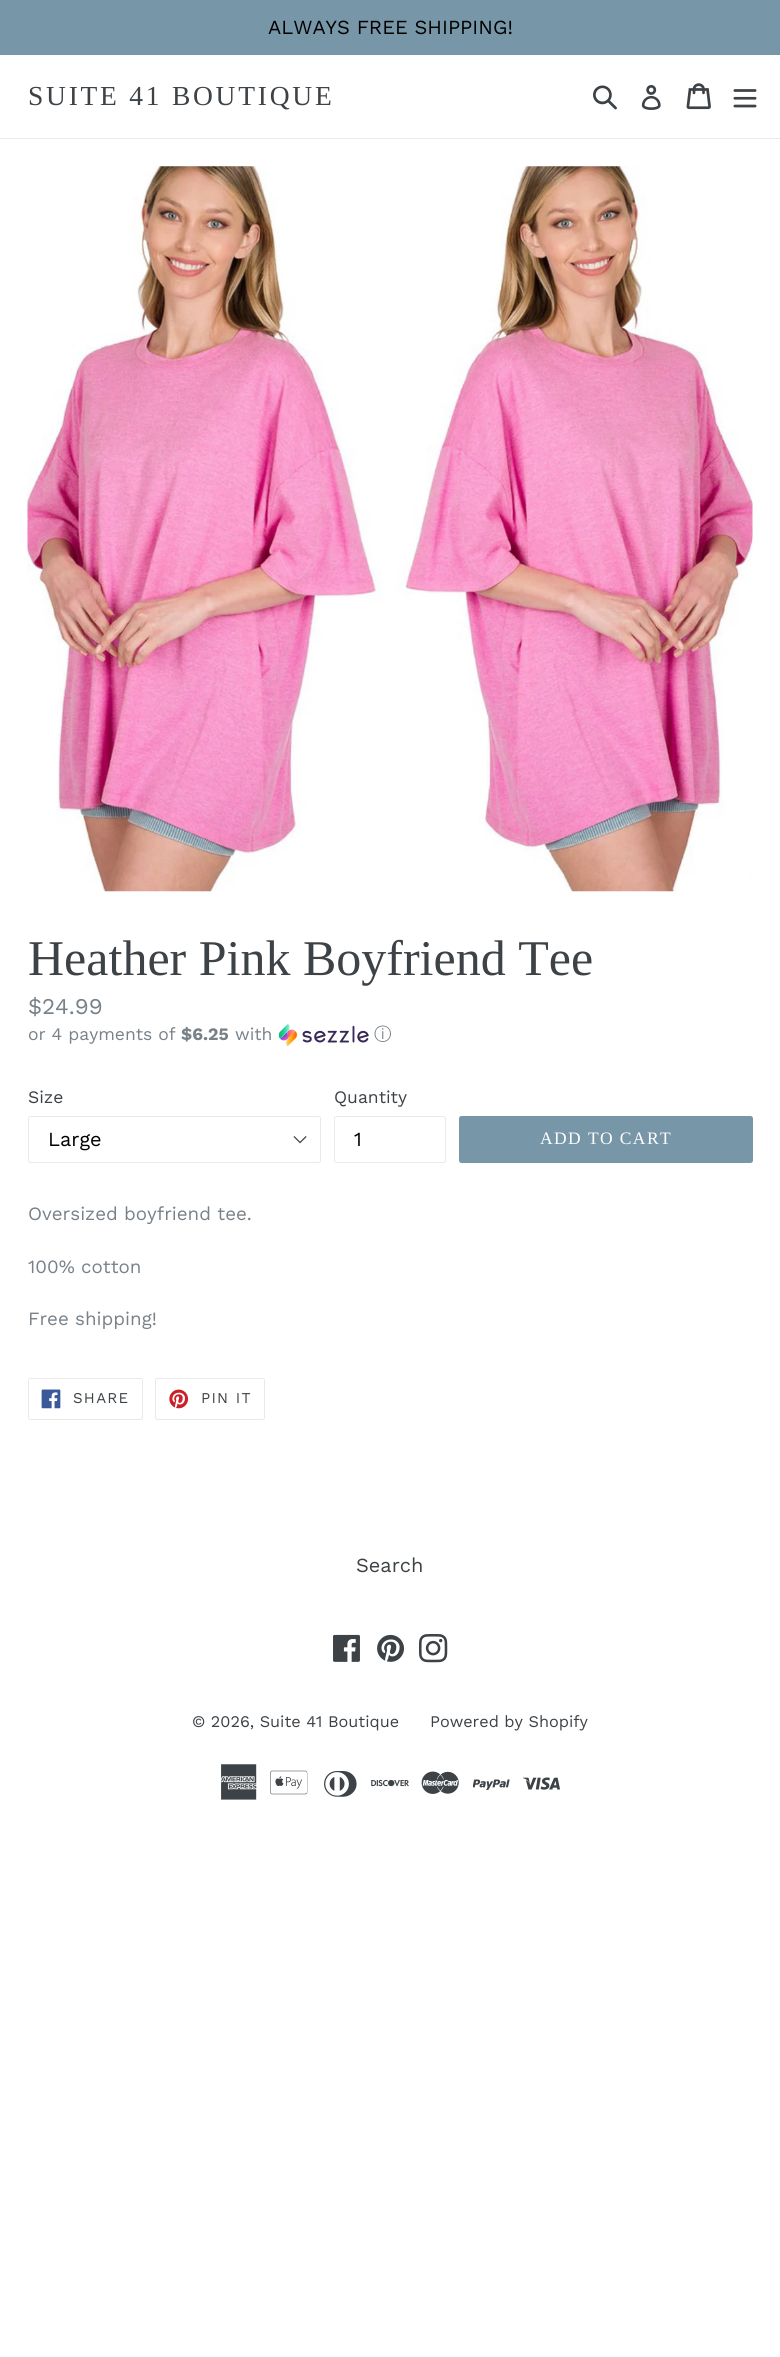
import math
import cairo

surface = cairo.ImageSurface(cairo.FORMAT_RGB24, 780, 2357)
ctx = cairo.Context(surface)
options = cairo.FontOptions()
options.set_hint_metrics(cairo.HINT_METRICS_OFF)
options.set_hint_style(cairo.HINT_STYLE_NONE)
ctx.set_font_options(options)
ctx.set_miter_limit(4)


def set_color(code):
    ctx.set_source_rgb(*(v / 255 for v in bytes.fromhex(code[-6:])))


def draw_text(x, y, s, family, size, color, bold=False, italic=False):
    ctx.select_font_face(family, cairo.FONT_SLANT_ITALIC if italic else cairo.FONT_SLANT_NORMAL, cairo.FONT_WEIGHT_BOLD if bold else cairo.FONT_WEIGHT_NORMAL)
    ctx.set_font_size(size)
    set_color(color)
    ctx.move_to(x, y)
    ctx.show_text(s)


def draw_spaced(x, y, s, letter, word):
    ctx.move_to(x, y)
    for ch in s:
        ctx.show_text(ch)
        ctx.rel_move_to(letter + word * (ch == ' '), 0)


def fill_rect(x, y, w, h, color):
    set_color(color)
    ctx.rectangle(x, y, w, h)
    ctx.fill()


def rounded_rect(x, y, w, h, r):
    ctx.new_sub_path()
    for i, (u, v) in enumerate([(x + w - r, y + h - r), (x + r, y + h - r), (x + r, y + r), (x + w - r, y + r)]):
        ctx.arc(u, v, r, i * math.pi / 2, (i + 1) * math.pi / 2)
    ctx.close_path()


def draw_image(path, x, y, w, h):
    ctx.save()
    ctx.set_source_surface(cairo.ImageSurface.create_from_png(path), x, y)
    ctx.rectangle(x, y, w, h)
    ctx.fill()
    ctx.restore()


set_color("#ffffff")
ctx.paint()
fill_rect(0, 0, 780, 55, "#7796a8")
draw_text(268, 34, "ALWAYS FREE SHIPPING!", "Work Sans", 20, "#000000")
fill_rect(0, 138, 780, 1, "#e8e9eb")
ctx.select_font_face("Liberation Serif")
ctx.set_font_size(27.5)
set_color("#3d4246")
draw_spaced(28, 105, "SUITE 41 BOUTIQUE", 2.75, 0)
draw_image("assets/img1.png", 593, 85, 24, 25)
draw_image("assets/img2.png", 641, 85, 20, 25)
draw_image("assets/img3.png", 686, 83, 25, 27)
draw_image("assets/img4.png", 733, 89, 24, 19)
draw_image("assets/img5.png", 27, 166, 726, 726)
draw_text(28, 975, "Heather Pink Boyfriend Tee", "Liberation Serif", 50, "#3d4246")
draw_text(28, 1014, "$24.99", "Work Sans", 22.5, "#788188")
draw_text(28, 1040, "or 4 payments of", "Work Sans", 17.5, "#788188")
draw_text(181, 1040, "$6.25", "Work Sans", 17.5, "#788188", bold=True)
draw_text(235, 1040, "with", "Work Sans", 17.5, "#788188")
draw_image("assets/img6.png", 279, 1024, 90, 22)
draw_text(374, 1040, "ⓘ", "WenQuanYi Zen Hei Medium", 17.5, "#788188")
draw_text(28, 1103, "Size", "Work Sans", 17.5, "#3d4246")
draw_image("assets/img7.png", 293, 1136, 14, 8)
rounded_rect(28.5, 1116.5, 292, 46, 2)
set_color("#e8e9eb")
ctx.set_line_width(1)
ctx.stroke()
draw_text(48, 1146, "Large", "Work Sans", 20, "#000000")
draw_text(334, 1103, "Quantity", "Work Sans", 17.5, "#3d4246")
rounded_rect(334.5, 1116.5, 111, 46, 2)
set_color("#e8e9eb")
ctx.stroke()
draw_text(354, 1146, "1", "Work Sans", 20, "#000000")
set_color("#7796a8")
rounded_rect(459, 1116, 294, 47, 2.5)
ctx.fill()
ctx.select_font_face("Liberation Serif")
ctx.set_font_size(17.5)
set_color("#ffffff")
draw_spaced(540, 1144, "ADD TO CART", 1.4, 0)
draw_text(28, 1220, "Oversized boyfriend tee.", "Work Sans", 18.75, "#788188")
draw_text(28, 1273, "100% cotton", "Work Sans", 18.75, "#788188")
draw_text(28, 1325, "Free shipping!", "Work Sans", 18.75, "#788188")
rounded_rect(28.5, 1378.5, 114, 41, 2)
set_color("#e8e9eb")
ctx.stroke()
draw_image("assets/img8.png", 41, 1389, 20, 20)
ctx.set_font_size(15)
set_color("#3d4246")
draw_spaced(73, 1403, "SHARE", 1.25, 0)
rounded_rect(155.5, 1378.5, 109, 41, 2)
set_color("#e8e9eb")
ctx.stroke()
draw_image("assets/img9.png", 169, 1389, 20, 20)
set_color("#3d4246")
draw_spaced(201, 1403, "PIN IT", 1.25, 0)
draw_text(356, 1572, "Search", "Work Sans", 20, "#3d4246")
draw_image("assets/img10.png", 333, 1634, 27, 28)
draw_image("assets/img11.png", 377, 1634, 27, 28)
draw_image("assets/img12.png", 419, 1634, 29, 29)
draw_text(192, 1727, "© 2026, Suite 41 Boutique", "Work Sans", 16.25, "#3d4246")
draw_text(430, 1727, "Powered by Shopify", "Work Sans", 16.25, "#3d4246")
draw_image("assets/img13.png", 221, 1764, 36, 36)
draw_image("assets/img14.png", 270, 1770, 38, 25)
draw_image("assets/img15.png", 324, 1771, 33, 26)
draw_image("assets/img16.png", 371, 1779, 38, 8)
draw_image("assets/img17.png", 421, 1771, 38, 23)
draw_image("assets/img18.png", 473, 1779, 37, 11)
draw_image("assets/img19.png", 523, 1777, 37, 13)
surface.write_to_png("output.png")
